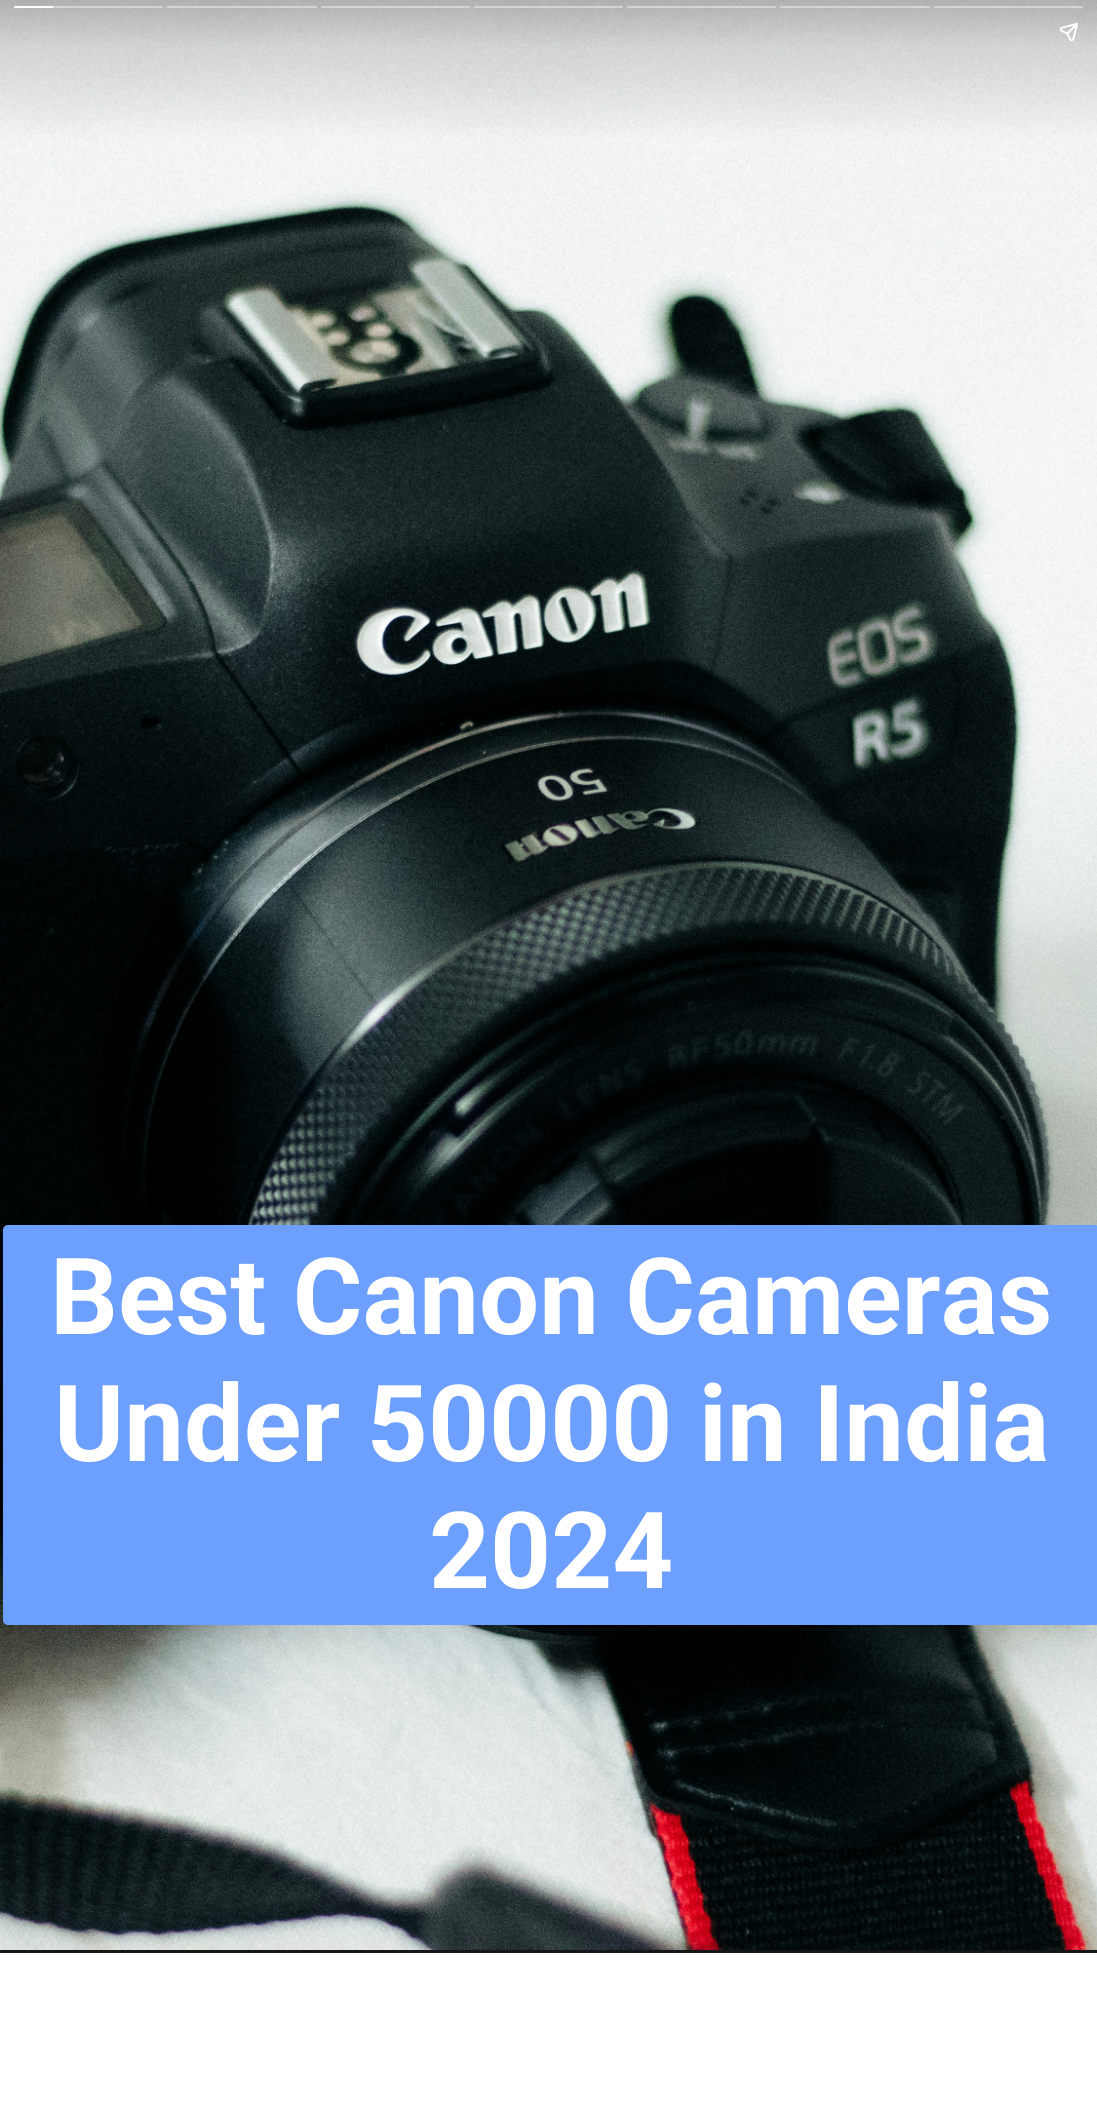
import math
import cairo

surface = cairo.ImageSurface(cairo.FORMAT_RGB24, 1097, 2119)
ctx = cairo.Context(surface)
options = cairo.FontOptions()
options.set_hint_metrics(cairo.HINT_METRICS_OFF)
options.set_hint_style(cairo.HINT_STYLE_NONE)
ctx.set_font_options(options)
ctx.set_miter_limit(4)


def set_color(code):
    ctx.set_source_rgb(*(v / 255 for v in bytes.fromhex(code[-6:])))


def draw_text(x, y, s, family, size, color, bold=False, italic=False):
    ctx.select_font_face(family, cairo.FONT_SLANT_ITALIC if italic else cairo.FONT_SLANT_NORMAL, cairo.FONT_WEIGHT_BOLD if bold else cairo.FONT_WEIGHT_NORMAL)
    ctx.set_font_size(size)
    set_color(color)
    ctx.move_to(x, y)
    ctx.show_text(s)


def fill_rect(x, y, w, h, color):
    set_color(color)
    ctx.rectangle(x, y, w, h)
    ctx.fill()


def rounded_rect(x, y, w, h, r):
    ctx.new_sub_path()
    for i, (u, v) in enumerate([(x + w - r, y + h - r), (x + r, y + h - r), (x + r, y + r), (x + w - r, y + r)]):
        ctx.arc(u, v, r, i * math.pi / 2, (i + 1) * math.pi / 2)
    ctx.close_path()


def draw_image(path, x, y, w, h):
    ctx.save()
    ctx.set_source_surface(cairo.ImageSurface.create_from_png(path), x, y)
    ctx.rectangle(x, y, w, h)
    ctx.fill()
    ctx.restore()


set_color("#131516")
ctx.paint()
draw_image("assets/img2.png", 0, 0, 1097, 1950)
ctx.set_source_rgba(1, 1, 1, 0.4)
rounded_rect(14, 6, 149, 2, 1)
ctx.fill()
set_color("#ffffff")
ctx.new_path()
ctx.move_to(15, 6)
ctx.line_to(53, 6)
ctx.line_to(53, 8)
ctx.line_to(15, 8)
ctx.curve_to(14.5, 8, 14, 7.5, 14, 7)
ctx.curve_to(14, 6.5, 14.5, 6, 15, 6)
ctx.close_path()
ctx.fill()
ctx.set_source_rgba(1, 1, 1, 0.4)
rounded_rect(167, 6, 150, 2, 1)
ctx.fill()
rounded_rect(321, 6, 149, 2, 1)
ctx.fill()
rounded_rect(474, 6, 149, 2, 1)
ctx.fill()
rounded_rect(627, 6, 149, 2, 1)
ctx.fill()
rounded_rect(780, 6, 150, 2, 1)
ctx.fill()
rounded_rect(934, 6, 149, 2, 1)
ctx.fill()
draw_image("assets/img1.png", 1059, 22, 20, 20)
set_color("#6d9fff")
rounded_rect(3, 1225, 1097, 400, 5)
ctx.fill()
draw_text(50, 1334, "Best Canon Cameras", "Roboto", 106.5, "#ffffff", bold=True)
draw_text(54, 1461, "Under 50000 in India", "Roboto", 106.5, "#ffffff", bold=True)
draw_text(429, 1588, "2024", "Roboto", 106.5, "#ffffff", bold=True)
ctx.save()
ctx.rectangle(1061, 1937, 12, 24)
ctx.clip()
ctx.new_path()
ctx.move_to(1059.5, 1929)
ctx.curve_to(1074.5, 1927.5, 1082.5, 1946.5, 1071, 1956.5)
ctx.curve_to(1068.5, 1958.5, 1066, 1959.5, 1063, 1960)
set_color("#000000")
ctx.set_line_width(3)
ctx.stroke()
ctx.restore()
fill_rect(0, 1953, 1097, 166, "#ffffff")
surface.write_to_png("output.png")
